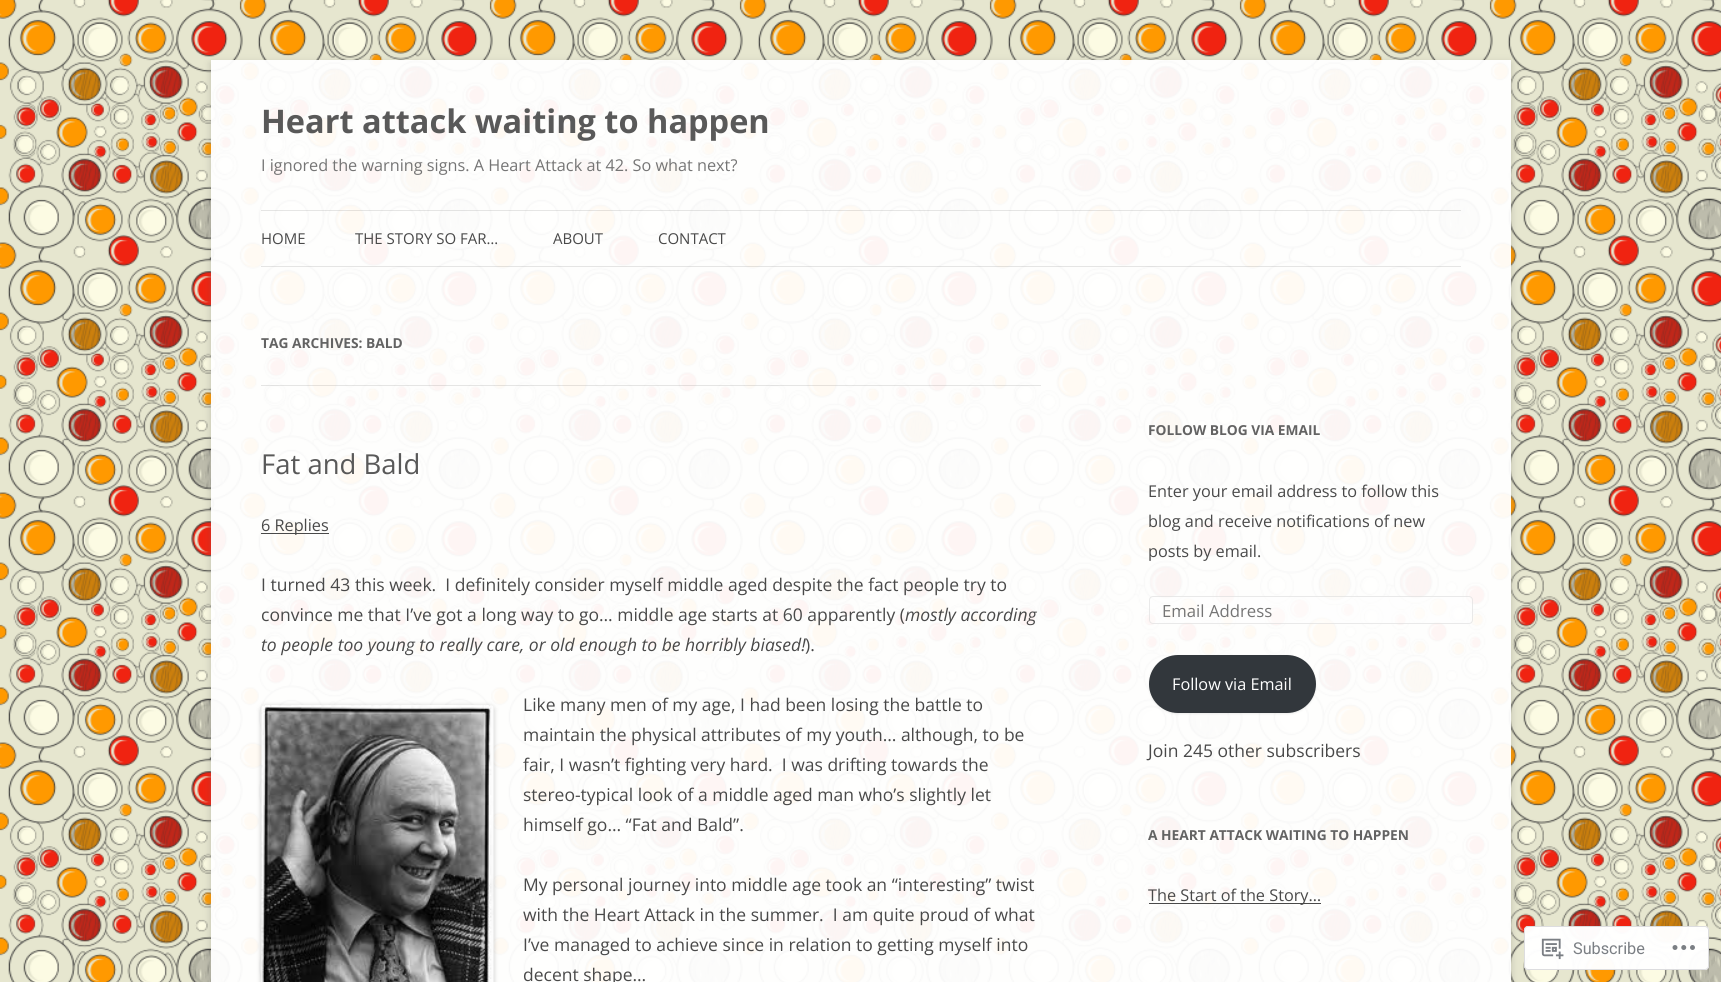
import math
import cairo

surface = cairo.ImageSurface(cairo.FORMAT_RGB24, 1721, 982)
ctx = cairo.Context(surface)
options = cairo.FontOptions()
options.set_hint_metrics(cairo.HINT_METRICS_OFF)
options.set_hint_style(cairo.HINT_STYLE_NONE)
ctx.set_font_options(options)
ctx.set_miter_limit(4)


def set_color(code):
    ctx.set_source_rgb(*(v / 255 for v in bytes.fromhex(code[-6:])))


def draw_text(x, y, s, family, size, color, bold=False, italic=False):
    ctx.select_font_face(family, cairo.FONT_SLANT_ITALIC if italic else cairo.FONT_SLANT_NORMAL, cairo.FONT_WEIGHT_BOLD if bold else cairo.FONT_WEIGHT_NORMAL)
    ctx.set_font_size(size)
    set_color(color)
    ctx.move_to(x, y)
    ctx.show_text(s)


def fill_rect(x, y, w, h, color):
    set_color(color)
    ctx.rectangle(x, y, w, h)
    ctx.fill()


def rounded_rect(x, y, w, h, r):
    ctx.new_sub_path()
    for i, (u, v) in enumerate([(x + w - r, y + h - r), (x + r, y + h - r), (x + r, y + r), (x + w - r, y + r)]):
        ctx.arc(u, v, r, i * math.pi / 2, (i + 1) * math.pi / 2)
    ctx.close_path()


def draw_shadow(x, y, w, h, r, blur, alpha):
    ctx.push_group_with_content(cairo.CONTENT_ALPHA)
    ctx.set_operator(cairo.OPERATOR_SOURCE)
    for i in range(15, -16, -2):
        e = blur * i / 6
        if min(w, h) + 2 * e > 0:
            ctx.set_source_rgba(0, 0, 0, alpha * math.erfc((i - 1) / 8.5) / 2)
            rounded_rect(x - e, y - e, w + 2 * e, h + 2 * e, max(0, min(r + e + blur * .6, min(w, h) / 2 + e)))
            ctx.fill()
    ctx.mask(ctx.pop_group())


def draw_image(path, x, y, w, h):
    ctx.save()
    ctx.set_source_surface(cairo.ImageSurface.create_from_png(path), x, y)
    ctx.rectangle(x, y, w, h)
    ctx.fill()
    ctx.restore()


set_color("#ffffff")
ctx.paint()
draw_image("assets/img1.png", 0, 0, 1721, 982)
ctx.save()
ctx.set_fill_rule(cairo.FILL_RULE_EVEN_ODD)
ctx.new_path()
ctx.move_to(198, 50)
ctx.line_to(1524, 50)
ctx.line_to(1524, 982)
ctx.line_to(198, 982)
ctx.close_path()
ctx.move_to(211, 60)
ctx.line_to(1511, 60)
ctx.line_to(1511, 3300)
ctx.line_to(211, 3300)
ctx.close_path()
ctx.clip()
set_color("#646464")
draw_shadow(211, 63, 1300, 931, 0, 4, 0.3)
ctx.restore()
ctx.set_source_rgba(1, 1, 1, 0.95)
ctx.rectangle(211, 60, 1300, 922)
ctx.fill()
draw_text(261, 133, "Heart attack waiting to happen", "Open Sans", 32.5, "#595959", bold=True)
draw_text(261, 171, "I ignored the warning signs. A Heart Attack at 42. So what next?", "Open Sans", 16.25, "#757575")
ctx.set_source_rgba(0, 0, 0, 0.1)
ctx.rectangle(261, 210, 1200, 1)
ctx.fill()
ctx.rectangle(261, 266, 1200, 1)
ctx.fill()
draw_text(261, 244, "HOME", "Open Sans", 15, "#494949")
draw_text(355, 244, "THE STORY SO FAR…", "Open Sans", 15, "#494949")
draw_text(553, 244, "ABOUT", "Open Sans", 15, "#494949")
draw_text(658, 244, "CONTACT", "Open Sans", 15, "#494949")
ctx.set_source_rgba(0, 0, 0, 0.1)
ctx.rectangle(261, 385, 780, 1)
ctx.fill()
draw_text(261, 348, "TAG ARCHIVES: BALD", "Open Sans", 13.75, "#636363", bold=True)
draw_text(261, 474, "Fat and Bald", "Open Sans", 27.5, "#595959")
fill_rect(261, 533, 68, 1, "#494949")
draw_text(261, 531, "6 Replies", "Open Sans", 16.25, "#494949")
draw_text(261, 591, "I turned 43 this week.  I definitely consider myself middle aged despite the fact people try to", "Open Sans", 17.5, "#494949")
draw_text(261, 621, "convince me that I’ve got a long way to go… middle age starts at 60 apparently (", "Open Sans", 17.5, "#494949")
draw_text(905, 621, "mostly according", "Open Sans", 17.5, "#494949", italic=True)
draw_text(261, 651, "to people too young to really care, or old enough to be horribly biased!", "Open Sans", 17.5, "#494949", italic=True)
draw_text(805, 651, ").", "Open Sans", 17.5, "#494949")
set_color("#000000")
draw_shadow(261, 706, 233, 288, 4, 2.5, 0.2)
draw_image("assets/img2.png", 261, 705, 233, 277)
draw_text(523, 711, "Like many men of my age, I had been losing the battle to", "Open Sans", 17.5, "#494949")
draw_text(523, 741, "maintain the physical attributes of my youth… although, to be", "Open Sans", 17.5, "#494949")
draw_text(523, 771, "fair, I wasn’t fighting very hard.  I was drifting towards the", "Open Sans", 17.5, "#494949")
draw_text(523, 801, "stereo-typical look of a middle aged man who’s slightly let", "Open Sans", 17.5, "#494949")
draw_text(523, 831, "himself go… “Fat and Bald”.", "Open Sans", 17.5, "#494949")
draw_text(523, 891, "My personal journey into middle age took an “interesting” twist", "Open Sans", 17.5, "#494949")
draw_text(523, 921, "with the Heart Attack in the summer.  I am quite proud of what", "Open Sans", 17.5, "#494949")
draw_text(523, 951, "I’ve managed to achieve since in relation to getting myself into", "Open Sans", 17.5, "#494949")
draw_text(523, 981, "decent shape…", "Open Sans", 17.5, "#494949")
draw_text(1148, 435, "FOLLOW BLOG VIA EMAIL", "Open Sans", 13.75, "#636363", bold=True)
draw_text(1148, 497, "Enter your email address to follow this", "Open Sans", 16.25, "#494949")
draw_text(1148, 527, "blog and receive notifications of new", "Open Sans", 16.25, "#494949")
draw_text(1148, 557, "posts by email.", "Open Sans", 16.25, "#494949")
ctx.set_source_rgba(1, 1, 1, 0.4)
rounded_rect(1149, 596, 324, 28, 4)
ctx.fill()
rounded_rect(1149.5, 596.5, 323, 27, 3.5)
ctx.set_source_rgba(0.8, 0.8, 0.8, 0.4)
ctx.set_line_width(1)
ctx.stroke()
draw_text(1162, 617, "Email Address", "Open Sans", 16.75, "#757575")
set_color("#404040")
draw_shadow(1149, 656, 167, 58, 29, 1, 0.1)
set_color("#32373c")
rounded_rect(1149, 655, 167, 58, 29)
ctx.fill()
draw_text(1172, 690, "Follow via Email", "Open Sans", 16.25, "#ffffff")
draw_text(1148, 757, "Join 245 other subscribers", "Open Sans", 17.5, "#494949")
draw_text(1148, 840, "A HEART ATTACK WAITING TO HAPPEN", "Open Sans", 13.75, "#636363", bold=True)
fill_rect(1149, 903, 172, 1, "#494949")
draw_text(1148, 901, "The Start of the Story…", "Open Sans", 16.25, "#494949")
ctx.set_source_rgba(1, 1, 1, 0.98)
rounded_rect(1524, 926, 185, 44, 4)
ctx.fill()
rounded_rect(1524.5, 926.5, 184, 43, 3.5)
ctx.set_source_rgba(0.863, 0.863, 0.871, 0.98)
ctx.stroke()
draw_image("assets/img3.png", 1541, 938, 23, 22)
draw_text(1573, 954, "Subscribe", "Roboto", 16.25, "#7b7f84")
draw_image("assets/img4.png", 1672, 945, 23, 5)
surface.write_to_png("output.png")
